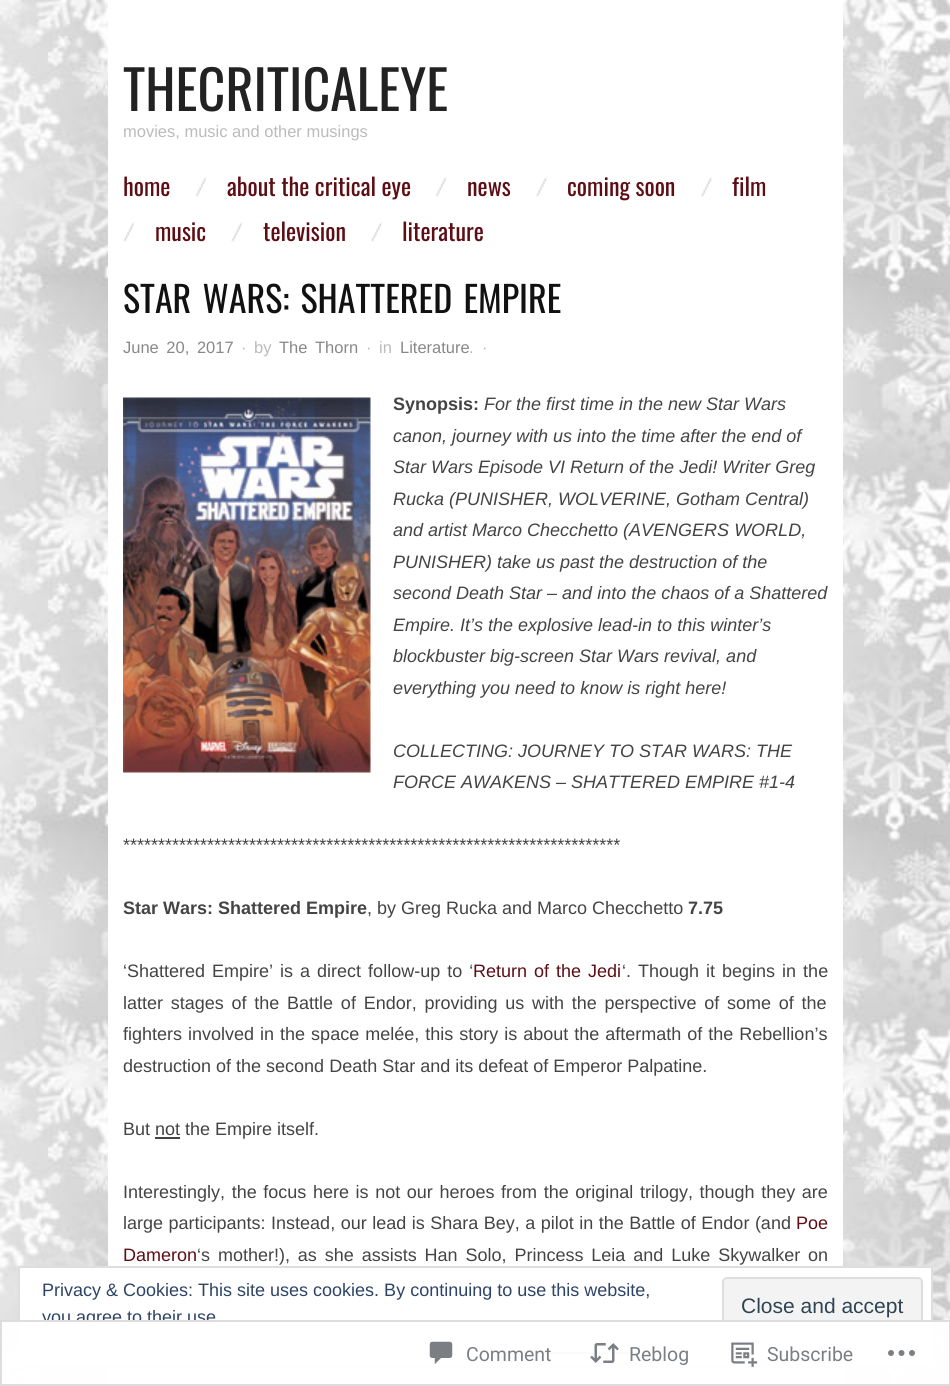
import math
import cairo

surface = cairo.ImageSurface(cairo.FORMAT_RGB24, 950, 1386)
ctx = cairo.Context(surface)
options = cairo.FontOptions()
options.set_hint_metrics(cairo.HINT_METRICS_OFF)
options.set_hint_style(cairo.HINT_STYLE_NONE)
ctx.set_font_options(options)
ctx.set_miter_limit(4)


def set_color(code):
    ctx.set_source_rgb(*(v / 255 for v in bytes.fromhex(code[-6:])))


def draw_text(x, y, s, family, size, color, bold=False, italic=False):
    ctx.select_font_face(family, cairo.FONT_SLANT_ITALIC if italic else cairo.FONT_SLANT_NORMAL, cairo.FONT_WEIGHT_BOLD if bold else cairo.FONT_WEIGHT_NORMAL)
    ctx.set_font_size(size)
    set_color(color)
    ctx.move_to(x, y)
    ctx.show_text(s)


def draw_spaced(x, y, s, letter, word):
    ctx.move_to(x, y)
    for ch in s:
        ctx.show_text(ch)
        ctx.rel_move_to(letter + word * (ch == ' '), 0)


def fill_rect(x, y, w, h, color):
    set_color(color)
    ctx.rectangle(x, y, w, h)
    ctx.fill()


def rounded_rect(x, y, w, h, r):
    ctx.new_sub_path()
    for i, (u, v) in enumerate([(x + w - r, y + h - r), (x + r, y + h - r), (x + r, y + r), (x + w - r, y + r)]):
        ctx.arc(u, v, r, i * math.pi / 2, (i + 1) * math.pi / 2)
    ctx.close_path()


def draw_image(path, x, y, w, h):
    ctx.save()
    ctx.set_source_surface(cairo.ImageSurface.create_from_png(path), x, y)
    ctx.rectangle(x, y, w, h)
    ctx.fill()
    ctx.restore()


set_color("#ffffff")
ctx.paint()
draw_image("assets/img1.png", 0, 0, 950, 1386)
fill_rect(108, 0, 735, 1386, "#ffffff")
draw_text(123, 111, "THECRITICALEYE", "Oswald", 54, "#222222")
draw_text(123, 137, "movies, music and other musings", "Liberation Sans", 16.5, "#bbbbbb")
draw_text(123, 196, "home", "Oswald", 24, "#5e0d14")
draw_image("assets/img2.png", 195, 177, 12, 20)
draw_text(227, 196, "about the critical eye", "Oswald", 24, "#5e0d14")
draw_image("assets/img3.png", 435, 177, 12, 20)
draw_text(467, 196, "news", "Oswald", 24, "#5e0d14")
draw_image("assets/img4.png", 536, 177, 12, 20)
draw_text(567, 196, "coming soon", "Oswald", 24, "#5e0d14")
draw_image("assets/img4.png", 701, 177, 12, 20)
draw_text(732, 196, "film", "Oswald", 24, "#5e0d14")
draw_image("assets/img2.png", 123, 222, 12, 20)
draw_text(155, 241, "music", "Oswald", 24, "#5e0d14")
draw_image("assets/img2.png", 231, 222, 12, 20)
draw_text(263, 241, "television", "Oswald", 24, "#5e0d14")
draw_image("assets/img4.png", 371, 222, 12, 20)
draw_text(402, 241, "literature", "Oswald", 24, "#5e0d14")
ctx.set_font_size(36)
set_color("#111111")
draw_spaced(123, 313, "STAR WARS: SHATTERED EMPIRE", 0, 3)
ctx.select_font_face("Liberation Sans")
ctx.set_font_size(16.5)
set_color("#888888")
draw_spaced(123, 353, "June 20, 2017", 0, 3)
draw_text(241, 353, "·", "Liberation Sans", 16.5, "#bbbbbb")
draw_text(254, 353, "by", "Liberation Sans", 16.5, "#bbbbbb")
set_color("#888888")
draw_spaced(279, 353, "The Thorn", 0, 3)
draw_text(366, 353, "·", "Liberation Sans", 16.5, "#bbbbbb")
draw_text(379, 353, "in", "Liberation Sans", 16.5, "#bbbbbb")
draw_text(400, 353, "Literature", "Liberation Sans", 16.5, "#888888")
draw_text(482, 353, "·", "Liberation Sans", 16.5, "#bbbbbb")
draw_text(469, 353, ".", "Liberation Sans", 16.5, "#bbbbbb")
draw_image("assets/img5.png", 123, 397, 248, 376)
draw_text(393, 410, "Synopsis:", "Liberation Sans", 18, "#444444", bold=True)
draw_text(484, 410, "For the first time in the new Star Wars", "Liberation Sans", 18, "#444444", italic=True)
draw_text(393, 442, "canon, journey with us into the time after the end of", "Liberation Sans", 18, "#444444", italic=True)
draw_text(393, 473, "Star Wars Episode VI Return of the Jedi! Writer Greg", "Liberation Sans", 18, "#444444", italic=True)
draw_text(393, 505, "Rucka (PUNISHER, WOLVERINE, Gotham Central)", "Liberation Sans", 18, "#444444", italic=True)
draw_text(393, 536, "and artist Marco Checchetto (AVENGERS WORLD,", "Liberation Sans", 18, "#444444", italic=True)
draw_text(393, 568, "PUNISHER) take us past the destruction of the", "Liberation Sans", 18, "#444444", italic=True)
draw_text(393, 599, "second Death Star – and into the chaos of a Shattered", "Liberation Sans", 18, "#444444", italic=True)
draw_text(393, 631, "Empire. It’s the explosive lead-in to this winter’s", "Liberation Sans", 18, "#444444", italic=True)
draw_text(393, 662, "blockbuster big-screen Star Wars revival, and", "Liberation Sans", 18, "#444444", italic=True)
draw_text(393, 694, "everything you need to know is right here!", "Liberation Sans", 18, "#444444", italic=True)
draw_text(393, 757, "COLLECTING: JOURNEY TO STAR WARS: THE", "Liberation Sans", 18, "#444444", italic=True)
draw_text(393, 788, "FORCE AWAKENS – SHATTERED EMPIRE #1-4", "Liberation Sans", 18, "#444444", italic=True)
draw_text(123, 851, "***********************************************************************", "Liberation Sans", 18, "#444444")
draw_text(123, 914, "Star Wars: Shattered Empire", "Liberation Sans", 18, "#444444", bold=True)
draw_text(367, 914, ", by Greg Rucka and Marco Checchetto", "Liberation Sans", 18, "#444444")
draw_text(688, 914, "7.75", "Liberation Sans", 18, "#444444", bold=True)
ctx.select_font_face("Liberation Sans")
draw_spaced(123, 977, "‘Shattered Empire’ is a direct follow-up to ‘", 0, 2)
set_color("#5e0d14")
draw_spaced(473, 977, "Return of the Jedi", 0, 2)
set_color("#444444")
draw_spaced(622, 977, "‘. Though it begins in the", 0, 2)
draw_spaced(123, 1009, "latter stages of the Battle of Endor, providing us with the perspective of some of the", 0, 2.75)
draw_spaced(123, 1040, "fighters involved in the space melée, this story is about the aftermath of the Rebellion’s", 0, 1)
draw_text(123, 1072, "destruction of the second Death Star and its defeat of Emperor Palpatine.", "Liberation Sans", 18, "#444444")
draw_text(123, 1135, "But not the Empire itself.", "Liberation Sans", 18, "#444444")
fill_rect(155, 1137, 25, 2, "#444444")
draw_spaced(123, 1198, "Interestingly, the focus here is not our heroes from the original trilogy, though they are", 0, 1.6)
draw_spaced(123, 1229, "large participants: Instead, our lead is Shara Bey, a pilot in the Battle of Endor (and", 0, 0.5)
draw_text(796, 1229, "Poe", "Liberation Sans", 18, "#5e0d14")
draw_text(123, 1261, "Dameron", "Liberation Sans", 18, "#5e0d14")
set_color("#444444")
draw_spaced(197, 1261, "‘s mother!), as she assists Han Solo, Princess Leia and Luke Skywalker on", 0, 2.9)
set_color("#ffffff")
ctx.rectangle(19, 1267, 913, 100)
ctx.fill_preserve()
set_color("#dedede")
ctx.stroke()
draw_text(42, 1296, "Privacy & Cookies: This site uses cookies. By continuing to use this website,", "Liberation Sans", 18, "#2e4467")
draw_text(42, 1323, "you agree to their use", "Liberation Sans", 18, "#2e4467")
set_color("#f3f3f3")
rounded_rect(723, 1278, 199, 56, 4)
ctx.fill_preserve()
set_color("#dedede")
ctx.stroke()
draw_text(741, 1313, "Close and accept", "Liberation Sans", 21, "#2e4453")
fill_rect(528, 1352, 108, 2, "#2e4467")
ctx.set_source_rgba(1, 1, 1, 0.98)
ctx.rectangle(0, 1320, 950, 66)
ctx.fill()
ctx.rectangle(1, 1321, 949, 64)
ctx.set_source_rgba(0.863, 0.863, 0.871, 0.98)
ctx.stroke()
draw_image("assets/img6.png", 429, 1341, 24, 24)
draw_text(466, 1361, "Comment", "Roboto", 19.5, "#7b7f84")
draw_image("assets/img7.png", 590, 1343, 29, 20)
draw_text(629, 1361, "Reblog", "Roboto", 19.5, "#7b7f84")
draw_image("assets/img8.png", 731, 1342, 27, 25)
draw_text(767, 1361, "Subscribe", "Roboto", 19.5, "#7b7f84")
draw_image("assets/img9.png", 888, 1350, 27, 6)
surface.write_to_png("output.png")
